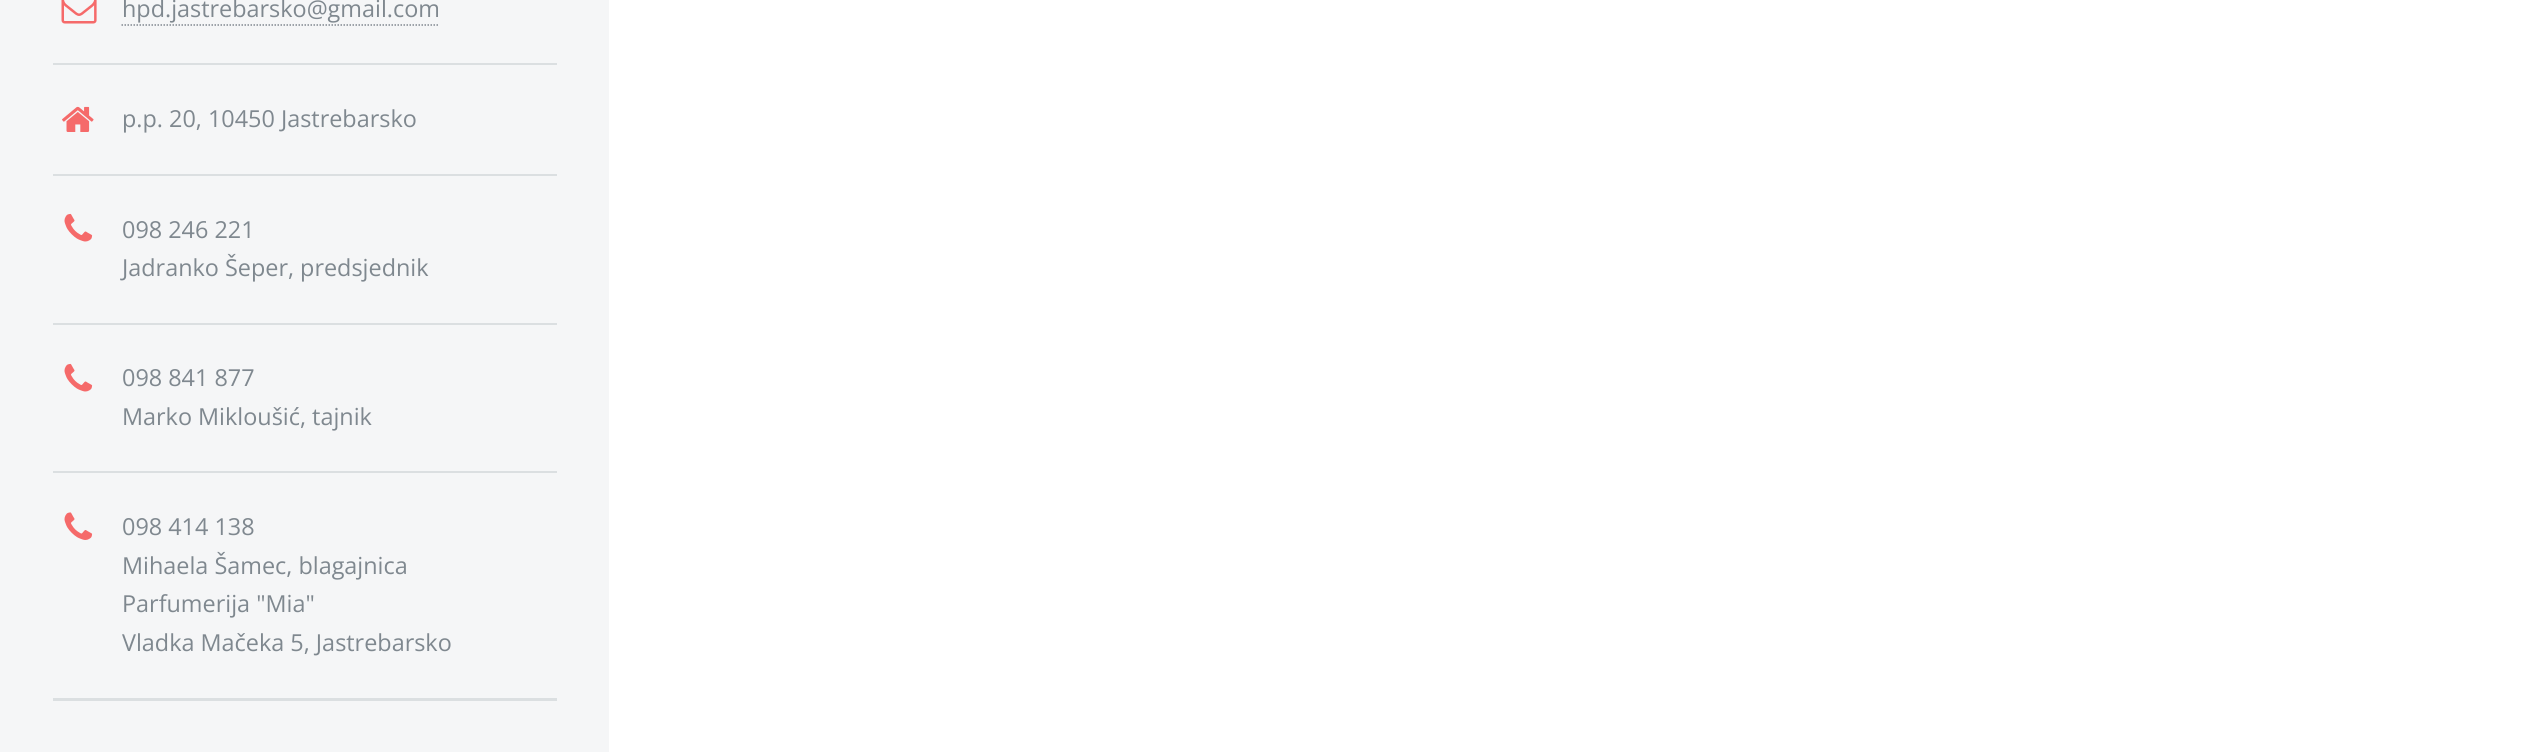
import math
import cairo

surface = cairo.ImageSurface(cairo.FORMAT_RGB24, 2542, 752)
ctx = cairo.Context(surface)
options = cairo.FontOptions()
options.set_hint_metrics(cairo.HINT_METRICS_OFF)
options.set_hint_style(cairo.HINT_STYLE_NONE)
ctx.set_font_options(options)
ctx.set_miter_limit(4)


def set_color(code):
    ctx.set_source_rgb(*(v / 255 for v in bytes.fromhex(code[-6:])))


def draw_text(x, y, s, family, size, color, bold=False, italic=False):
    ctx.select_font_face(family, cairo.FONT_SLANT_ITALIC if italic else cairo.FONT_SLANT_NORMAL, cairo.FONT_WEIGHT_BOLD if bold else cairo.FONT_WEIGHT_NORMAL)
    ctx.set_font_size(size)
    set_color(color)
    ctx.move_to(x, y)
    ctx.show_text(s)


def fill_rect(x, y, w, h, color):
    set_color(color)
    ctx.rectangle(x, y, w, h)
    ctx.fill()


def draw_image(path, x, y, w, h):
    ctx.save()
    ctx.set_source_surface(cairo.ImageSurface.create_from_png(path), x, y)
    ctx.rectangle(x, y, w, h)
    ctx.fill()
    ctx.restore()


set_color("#ffffff")
ctx.paint()
fill_rect(0, 0, 609, 752, "#f5f6f7")
fill_rect(53, 698, 504, 3, "#dbdfe1")
draw_image("assets/img1.png", 61, 0, 36, 24)
draw_text(122, 17, "hpd.jastrebarsko@gmail.com", "Open Sans", 23.4, "#7f888f")
ctx.new_path()
ctx.move_to(121.5, 25)
ctx.line_to(439.5, 25)
ctx.set_line_width(1.5)
ctx.set_dash([1.5, 1.5])
ctx.stroke()
fill_rect(53, 63, 504, 2, "#dbdfe1")
draw_image("assets/img2.png", 62, 106, 32, 26)
draw_text(122, 127, "p.p. 20, 10450 Jastrebarsko", "Open Sans", 23.4, "#7f888f")
fill_rect(53, 174, 504, 2, "#dbdfe1")
draw_image("assets/img3.png", 64, 213, 29, 29)
draw_text(122, 238, "098 246 221", "Open Sans", 23.4, "#7f888f")
draw_text(122, 276, "Jadranko Šeper, predsjednik", "Open Sans", 23.4, "#7f888f")
fill_rect(53, 323, 504, 2, "#dbdfe1")
draw_image("assets/img3.png", 64, 363, 29, 29)
draw_text(122, 386, "098 841 877", "Open Sans", 23.4, "#7f888f")
draw_text(122, 425, "Marko Mikloušić, tajnik", "Open Sans", 23.4, "#7f888f")
fill_rect(53, 471, 504, 2, "#dbdfe1")
draw_image("assets/img4.png", 64, 512, 29, 28)
draw_text(122, 535, "098 414 138", "Open Sans", 23.4, "#7f888f")
draw_text(122, 574, "Mihaela Šamec, blagajnica", "Open Sans", 23.4, "#7f888f")
draw_text(122, 612, "Parfumerija \"Mia\"", "Open Sans", 23.4, "#7f888f")
draw_text(122, 651, "Vladka Mačeka 5, Jastrebarsko", "Open Sans", 23.4, "#7f888f")
surface.write_to_png("output.png")
